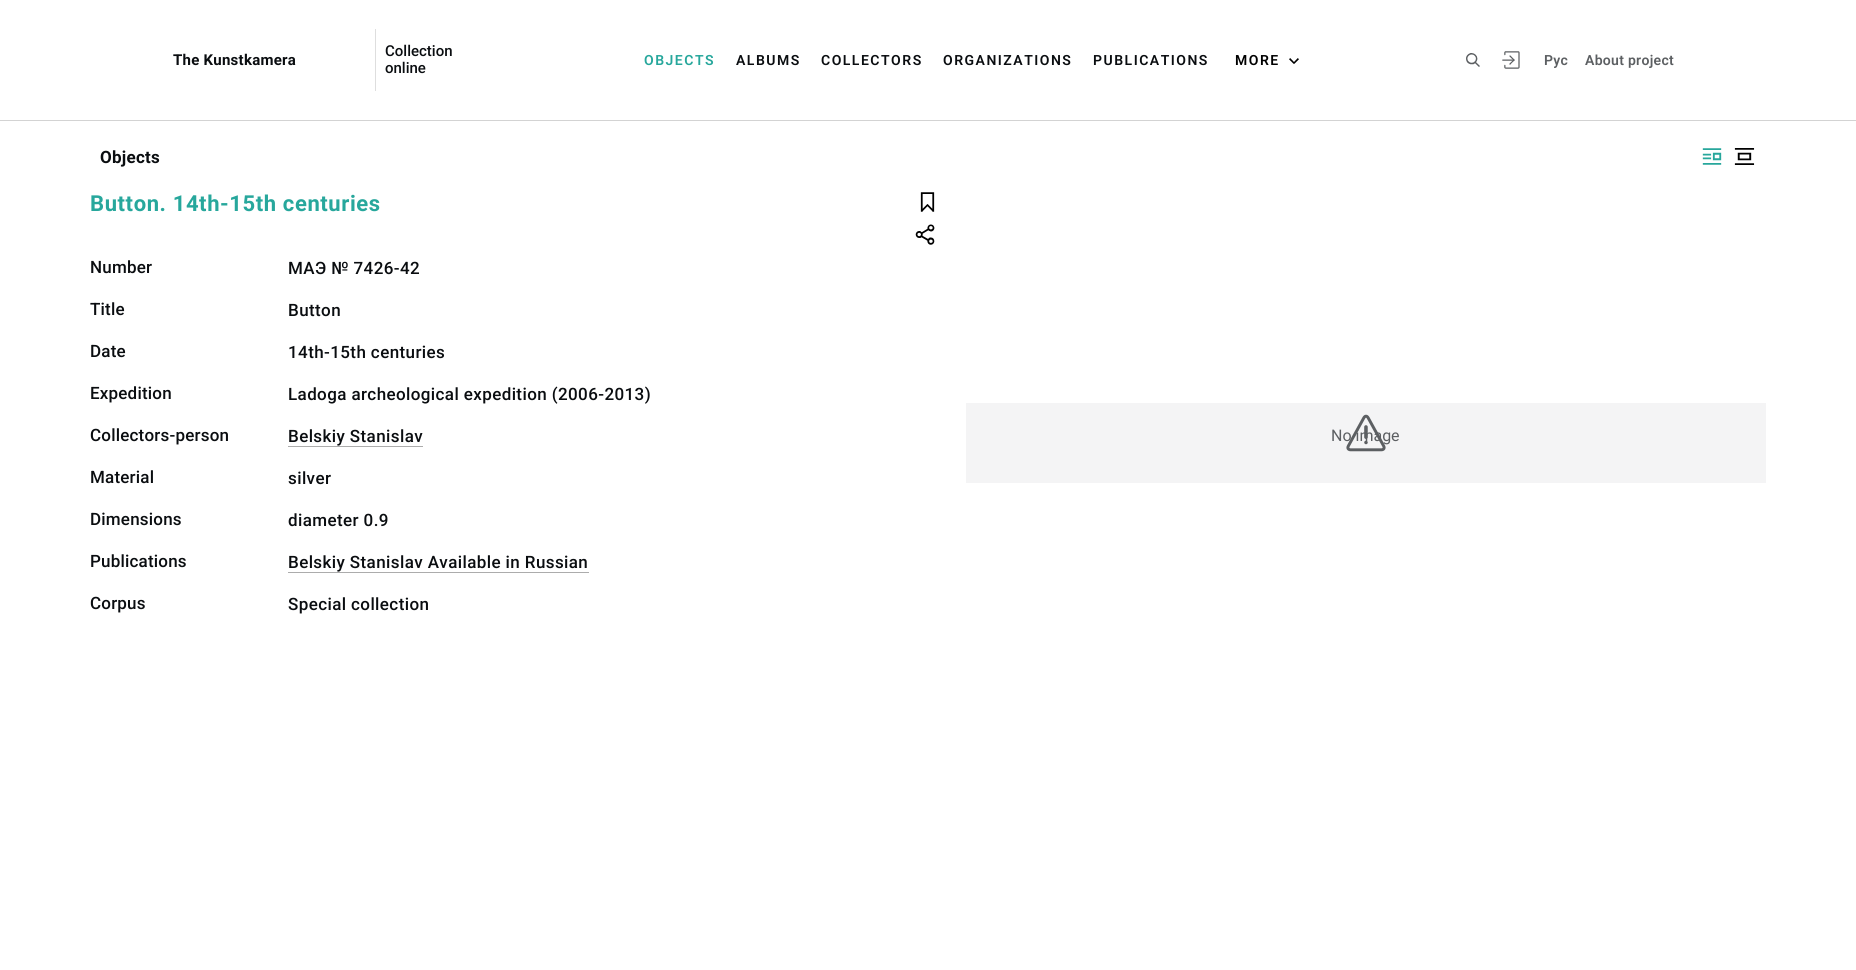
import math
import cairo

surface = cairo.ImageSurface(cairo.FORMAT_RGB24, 1856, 970)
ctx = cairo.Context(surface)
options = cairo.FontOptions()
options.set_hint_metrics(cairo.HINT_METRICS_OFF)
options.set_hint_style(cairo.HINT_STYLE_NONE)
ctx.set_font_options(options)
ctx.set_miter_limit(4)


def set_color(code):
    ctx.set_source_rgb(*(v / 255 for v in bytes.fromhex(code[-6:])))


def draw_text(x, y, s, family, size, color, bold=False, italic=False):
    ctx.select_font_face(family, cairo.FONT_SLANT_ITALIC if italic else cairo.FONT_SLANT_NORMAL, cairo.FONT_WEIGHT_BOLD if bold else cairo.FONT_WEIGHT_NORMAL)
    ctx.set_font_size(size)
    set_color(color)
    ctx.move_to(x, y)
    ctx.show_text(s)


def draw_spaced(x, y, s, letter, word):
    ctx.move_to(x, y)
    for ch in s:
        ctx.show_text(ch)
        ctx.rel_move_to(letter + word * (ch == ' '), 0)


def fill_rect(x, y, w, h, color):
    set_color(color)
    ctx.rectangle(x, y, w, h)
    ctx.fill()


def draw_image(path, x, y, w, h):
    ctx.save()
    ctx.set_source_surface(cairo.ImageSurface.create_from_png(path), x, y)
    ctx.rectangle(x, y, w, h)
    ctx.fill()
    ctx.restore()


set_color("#ffffff")
ctx.paint()
fill_rect(0, 120, 1856, 1, "#d3d3d3")
ctx.select_font_face("Roboto", cairo.FONT_SLANT_NORMAL, cairo.FONT_WEIGHT_BOLD)
ctx.set_font_size(15)
set_color("#0a0d10")
draw_spaced(173, 65, "The Kunstkamera", 0.25, 0)
fill_rect(375, 29, 1, 62, "#dedede")
draw_text(385, 56, "Collection", "Roboto Medium", 15, "#0a0d10")
draw_text(385, 73, "online", "Roboto Medium", 15, "#0a0d10")
ctx.select_font_face("Roboto SemiBold")
ctx.set_font_size(14)
set_color("#27a79c")
draw_spaced(644, 65, "OBJECTS", 1.5, 0)
set_color("#0a0d10")
draw_spaced(736, 65, "ALBUMS", 1.5, 0)
draw_spaced(821, 65, "COLLECTORS", 1.5, 0)
draw_spaced(943, 65, "ORGANIZATIONS", 1.5, 0)
draw_spaced(1093, 65, "PUBLICATIONS", 1.5, 0)
set_color("#000000")
draw_spaced(1235, 65, "MORE", 1.5, 0)
draw_image("assets/img1.png", 1289, 58, 10, 6)
draw_image("assets/img2.png", 1466, 53, 14, 14)
draw_image("assets/img3.png", 1502, 51, 18, 18)
set_color("#5c5f62")
draw_spaced(1544, 65, "Рус", 0.3, 0)
draw_spaced(1585, 65, "About project", 0.3, 0)
ctx.select_font_face("Roboto", cairo.FONT_SLANT_NORMAL, cairo.FONT_WEIGHT_BOLD)
ctx.set_font_size(17)
set_color("#0a0d10")
draw_spaced(100, 163, "Objects", 0.25, 0)
draw_image("assets/img4.png", 1702, 148, 20, 17)
draw_image("assets/img5.png", 1734, 148, 21, 17)
ctx.set_font_size(22)
set_color("#27a79c")
draw_spaced(90, 211, "Button. 14th-15th centuries", 0.6, 0)
draw_image("assets/img6.png", 920, 192, 15, 20)
draw_image("assets/img7.png", 915, 224, 20, 21)
ctx.select_font_face("Roboto Medium")
ctx.set_font_size(17)
set_color("#0a0d10")
draw_spaced(90, 273, "Number", 0.2, 0)
draw_spaced(288, 274, "МАЭ № 7426-42", 0.4, 0)
draw_spaced(90, 315, "Title", 0.2, 0)
draw_spaced(288, 316, "Button", 0.4, 0)
draw_spaced(90, 357, "Date", 0.2, 0)
draw_spaced(288, 358, "14th-15th centuries", 0.4, 0)
draw_spaced(90, 399, "Expedition", 0.2, 0)
draw_spaced(288, 400, "Ladoga archeological expedition (2006-2013)", 0.4, 0)
draw_spaced(90, 441, "Collectors-person", 0.2, 0)
draw_spaced(288, 442, "Belskiy Stanislav", 0.4, 0)
fill_rect(288, 446, 135, 1, "#acacac")
set_color("#0a0d10")
draw_spaced(90, 483, "Material", 0.2, 0)
draw_spaced(288, 484, "silver", 0.4, 0)
draw_spaced(90, 525, "Dimensions", 0.2, 0)
draw_spaced(288, 526, "diameter 0.9", 0.4, 0)
draw_spaced(90, 567, "Publications", 0.2, 0)
draw_spaced(288, 568, "Belskiy Stanislav Available in Russian", 0.4, 0)
fill_rect(288, 572, 301, 1, "#acacac")
set_color("#0a0d10")
draw_spaced(90, 609, "Corpus", 0.2, 0)
draw_spaced(288, 610, "Special collection", 0.4, 0)
fill_rect(966, 403, 800, 80, "#f4f4f5")
draw_text(1331, 441, "No image", "Roboto", 16, "#5c5f62")
draw_image("assets/img8.png", 1346, 414, 40, 38)
surface.write_to_png("output.png")
